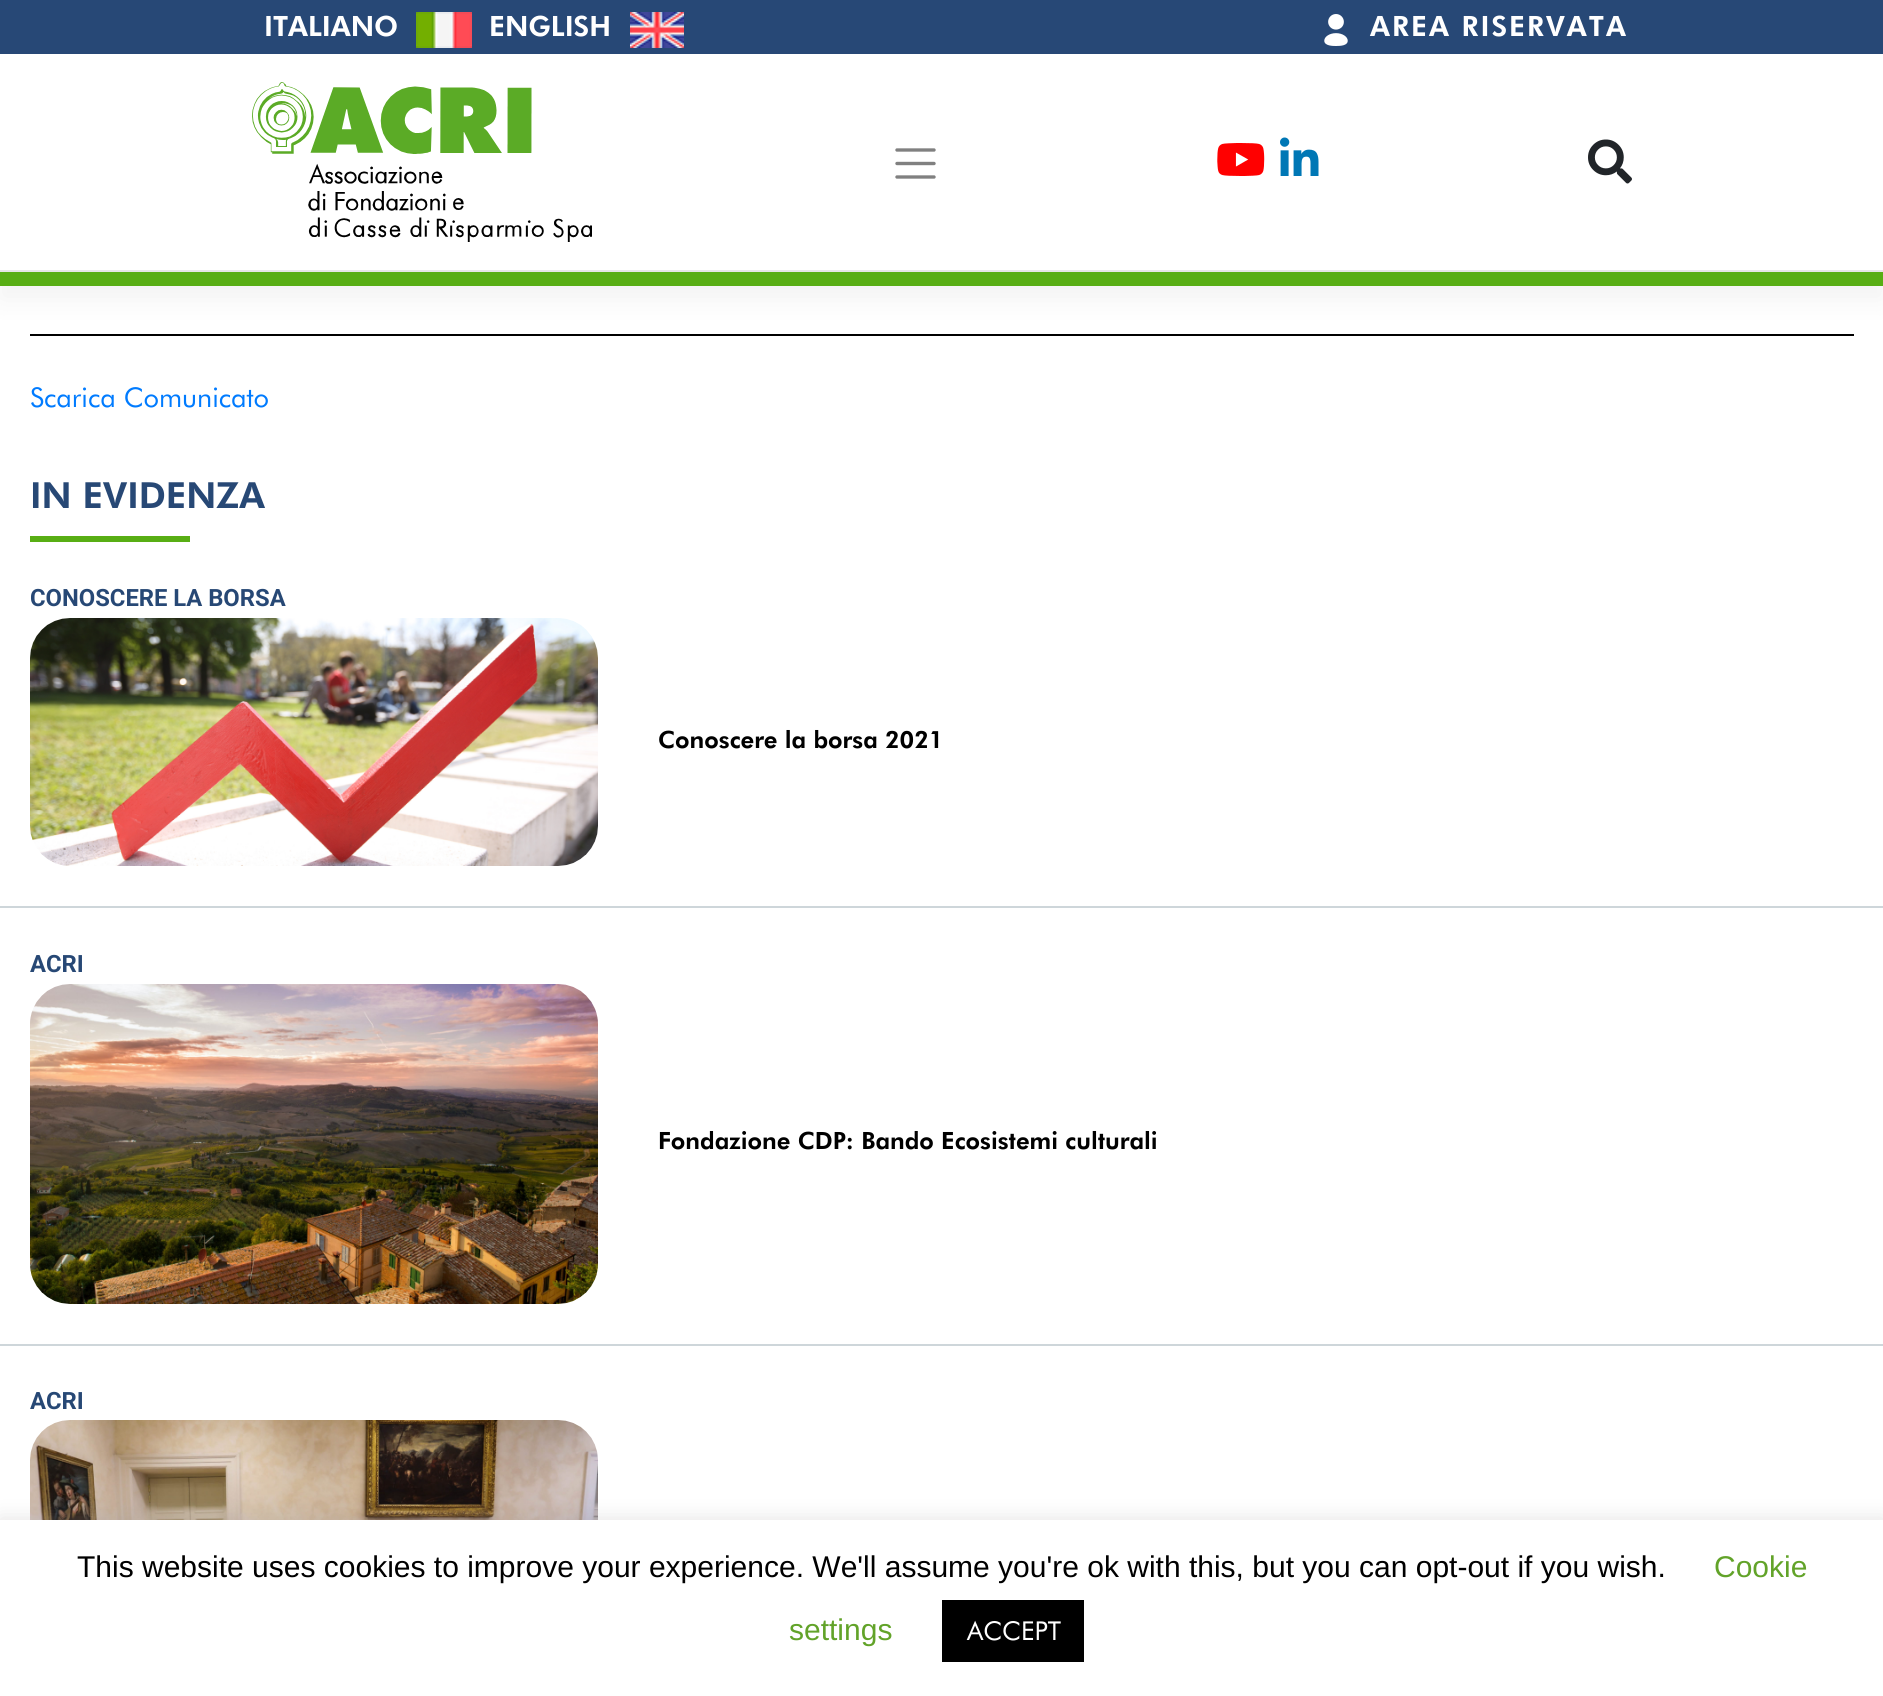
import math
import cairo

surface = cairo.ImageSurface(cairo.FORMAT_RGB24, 1883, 1696)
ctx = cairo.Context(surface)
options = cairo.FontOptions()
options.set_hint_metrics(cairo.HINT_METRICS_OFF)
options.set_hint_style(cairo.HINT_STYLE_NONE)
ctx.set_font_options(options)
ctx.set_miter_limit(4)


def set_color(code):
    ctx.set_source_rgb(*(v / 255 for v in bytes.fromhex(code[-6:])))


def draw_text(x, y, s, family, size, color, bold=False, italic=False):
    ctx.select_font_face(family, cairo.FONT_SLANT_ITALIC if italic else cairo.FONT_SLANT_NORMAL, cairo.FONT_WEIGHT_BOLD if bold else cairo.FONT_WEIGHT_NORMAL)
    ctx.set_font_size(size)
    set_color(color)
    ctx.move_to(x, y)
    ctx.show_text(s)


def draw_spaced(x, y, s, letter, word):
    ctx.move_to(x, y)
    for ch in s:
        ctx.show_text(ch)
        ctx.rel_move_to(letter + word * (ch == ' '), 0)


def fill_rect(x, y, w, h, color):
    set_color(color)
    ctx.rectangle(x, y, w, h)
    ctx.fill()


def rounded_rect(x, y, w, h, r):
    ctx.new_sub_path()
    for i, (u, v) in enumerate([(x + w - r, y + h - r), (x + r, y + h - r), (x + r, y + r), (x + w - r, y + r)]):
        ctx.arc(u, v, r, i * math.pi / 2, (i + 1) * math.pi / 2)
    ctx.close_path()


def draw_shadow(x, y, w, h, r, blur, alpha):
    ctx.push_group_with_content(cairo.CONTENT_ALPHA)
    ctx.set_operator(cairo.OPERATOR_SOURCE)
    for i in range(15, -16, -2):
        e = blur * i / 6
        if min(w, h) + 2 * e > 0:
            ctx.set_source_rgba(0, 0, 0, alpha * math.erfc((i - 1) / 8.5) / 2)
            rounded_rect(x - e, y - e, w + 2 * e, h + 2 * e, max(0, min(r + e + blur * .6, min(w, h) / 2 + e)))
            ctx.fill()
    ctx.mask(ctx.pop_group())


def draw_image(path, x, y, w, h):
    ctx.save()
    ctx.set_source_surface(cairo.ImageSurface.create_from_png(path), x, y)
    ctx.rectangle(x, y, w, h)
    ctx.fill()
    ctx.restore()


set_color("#ffffff")
ctx.paint()
fill_rect(30, 334, 1824, 2, "#000000")
set_color("#000000")
draw_shadow(0, 14, 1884, 286, 0, 13.5, 0.05)
fill_rect(0, 54, 1883, 216, "#ffffff")
fill_rect(0, 270, 1883, 2, "#e6e6e6")
fill_rect(0, 272, 1883, 14, "#58ae14")
fill_rect(0, 0, 1883, 54, "#274876")
draw_text(264, 36, "ITALIANO", "Futura Black", 28, "#ffffff")
draw_image("assets/img1.png", 416, 12, 56, 36)
draw_text(489, 36, "ENGLISH", "Futura Black", 28, "#ffffff")
draw_image("assets/img2.png", 630, 12, 54, 36)
draw_image("assets/img3.png", 1324, 14, 24, 32)
draw_spaced(1370, 36, "AREA RISERVATA", 2, 0)
draw_image("assets/img4.png", 252, 82, 340, 160)
ctx.new_path()
ctx.move_to(897, 150)
ctx.line_to(934, 150)
ctx.move_to(897, 163.5)
ctx.line_to(934, 163.5)
ctx.move_to(897, 177)
ctx.line_to(934, 177)
set_color("#808080")
ctx.set_line_width(3.4)
ctx.set_line_cap(cairo.LINE_CAP_ROUND)
ctx.stroke()
draw_image("assets/img5.png", 1217, 143, 48, 33)
draw_image("assets/img6.png", 1280, 137, 39, 39)
draw_image("assets/img7.png", 1588, 139, 44, 45)
draw_text(30, 407, "Scarica Comunicato", "Futura", 27.25, "#007bff")
draw_text(30, 508, "IN EVIDENZA", "Futura Black", 36, "#274875")
fill_rect(30, 536, 160, 6, "#58ae14")
fill_rect(0, 906, 1883, 2, "#ced6da")
draw_text(30, 606, "CONOSCERE LA BORSA", "Roboto", 23.8, "#274875", bold=True)
draw_image("assets/img8.png", 30, 618, 568, 248)
draw_text(658, 748, "Conoscere la borsa 2021", "Futura Black", 23.8, "#000000")
fill_rect(0, 1344, 1883, 2, "#ced6da")
draw_text(30, 972, "ACRI", "Roboto", 23.8, "#274875", bold=True)
draw_image("assets/img9.png", 30, 984, 568, 320)
draw_text(658, 1149, "Fondazione CDP: Bando Ecosistemi culturali", "Futura Black", 23.8, "#000000")
draw_text(30, 1409, "ACRI", "Roboto", 23.8, "#274875", bold=True)
draw_image("assets/img10.png", 30, 1420, 568, 100)
set_color("#acabab")
draw_shadow(0, 1518, 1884, 176, 0, 10, 0.3)
fill_rect(0, 1520, 1883, 176, "#ffffff")
draw_text(77, 1577, "This website uses cookies to improve your experience. We'll assume you're ok with this, but you can opt-out if you wish.", "Liberation Sans", 30, "#000000")
draw_text(1714, 1577, "Cookie", "Liberation Sans", 30, "#62a329")
draw_text(789, 1640, "settings", "Liberation Sans", 30, "#62a329")
fill_rect(942, 1600, 142, 62, "#000000")
draw_text(967, 1640, "ACCEPT", "Futura", 26, "#ffffff")
surface.write_to_png("output.png")
